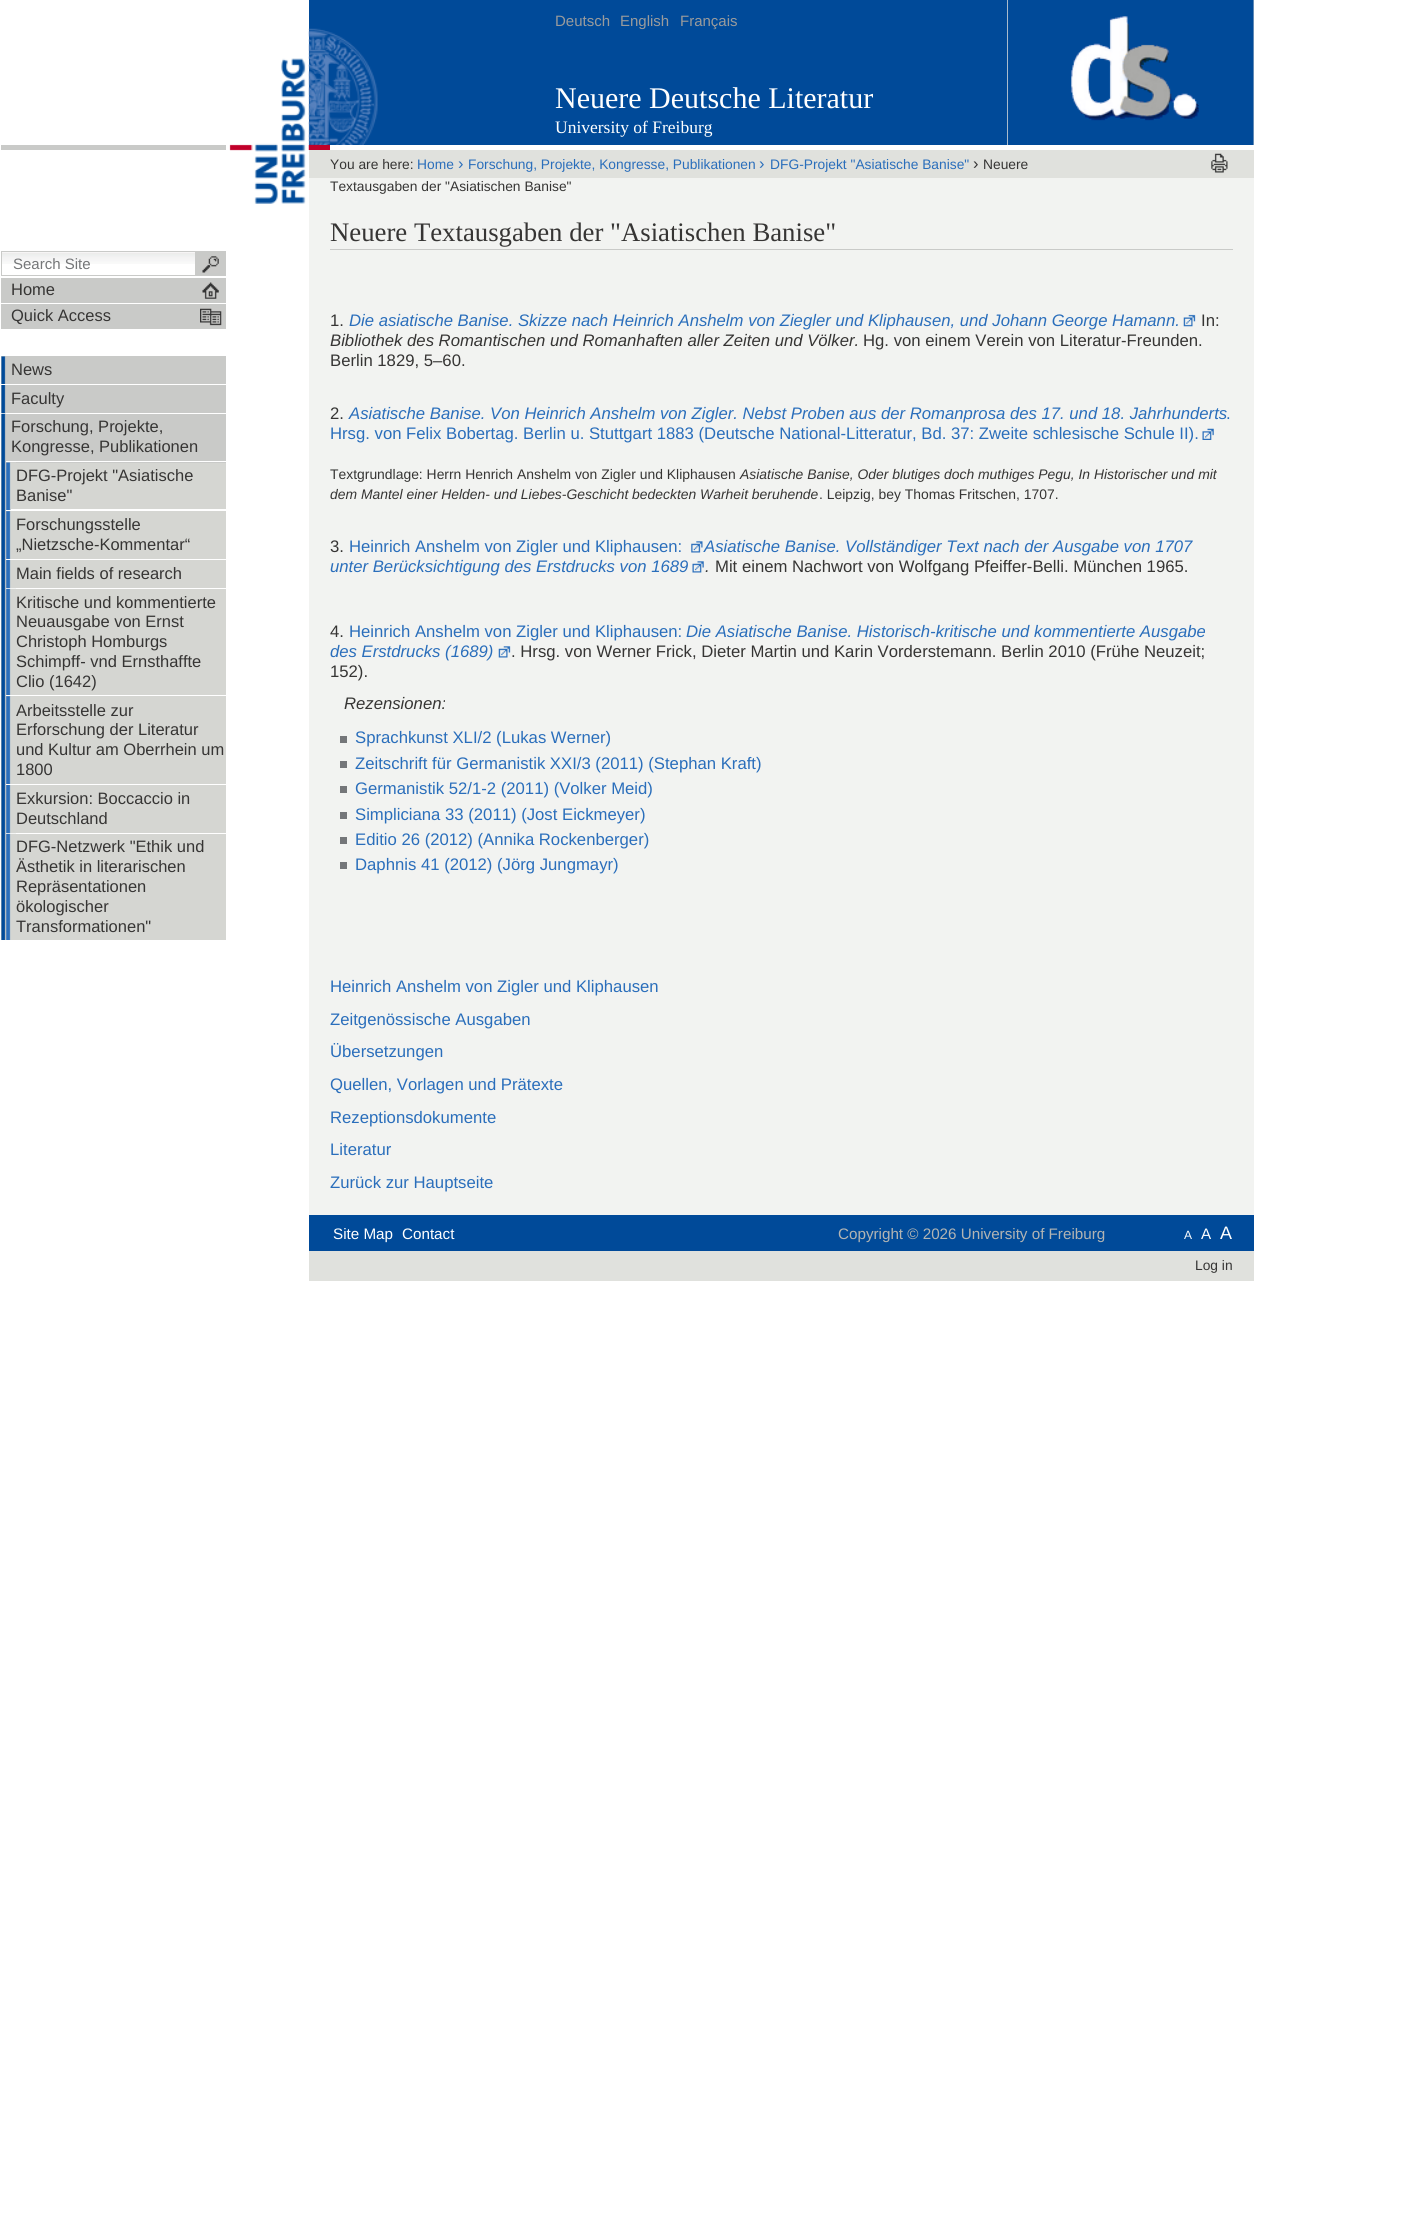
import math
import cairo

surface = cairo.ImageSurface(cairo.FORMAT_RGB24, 1428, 2214)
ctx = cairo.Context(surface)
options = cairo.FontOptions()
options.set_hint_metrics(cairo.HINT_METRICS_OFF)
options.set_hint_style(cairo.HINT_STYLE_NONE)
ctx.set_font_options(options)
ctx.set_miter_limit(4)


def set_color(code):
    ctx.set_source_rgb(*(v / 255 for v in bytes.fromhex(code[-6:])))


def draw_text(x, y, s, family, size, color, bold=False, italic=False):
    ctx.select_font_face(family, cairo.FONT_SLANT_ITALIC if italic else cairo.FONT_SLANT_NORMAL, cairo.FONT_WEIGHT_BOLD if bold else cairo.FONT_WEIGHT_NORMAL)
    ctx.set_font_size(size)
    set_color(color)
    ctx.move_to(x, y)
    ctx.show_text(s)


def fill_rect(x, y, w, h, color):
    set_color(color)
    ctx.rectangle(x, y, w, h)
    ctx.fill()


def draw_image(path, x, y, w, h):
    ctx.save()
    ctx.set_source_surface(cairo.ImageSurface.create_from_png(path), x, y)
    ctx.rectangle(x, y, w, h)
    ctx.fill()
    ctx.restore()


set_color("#ffffff")
ctx.paint()
fill_rect(308, 145, 22, 5, "#c1002a")
draw_image("assets/img1.png", 229, 58, 80, 146)
fill_rect(309, 178, 945, 1037, "#f2f3f1")
fill_rect(309, 0, 698, 145, "#004a99")
draw_image("assets/img2.png", 308, 28, 70, 117)
draw_text(555, 26, "Deutsch", "Liberation Sans", 15, "#9a9b9c")
draw_text(620, 26, "English", "Liberation Sans", 15, "#9a9b9c")
draw_text(680, 26, "Français", "Liberation Sans", 15, "#9a9b9c")
fill_rect(1007, 0, 247, 145, "#e2e1dd")
draw_image("assets/img3.png", 1007, 0, 247, 145)
draw_text(555, 108, "Neuere Deutsche Literatur", "Liberation Serif", 30, "#ffffff")
draw_text(555, 133, "University of Freiburg", "Liberation Serif", 17.5, "#ffffff")
fill_rect(309, 150, 945, 28, "#e0e1dd")
draw_text(330, 169, "You are here:", "Liberation Sans", 13.8, "#363534")
draw_text(417, 169, "Home", "Liberation Sans", 13.8, "#2a6ebb")
draw_text(458, 169, "›", "Liberation Sans", 16.5, "#2a6ebb")
draw_text(468, 169, "Forschung, Projekte, Kongresse, Publikationen", "Liberation Sans", 13.8, "#2a6ebb")
draw_text(759, 169, "›", "Liberation Sans", 16.5, "#2a6ebb")
draw_text(770, 169, "DFG-Projekt \"Asiatische Banise\"", "Liberation Sans", 13.8, "#2a6ebb")
draw_text(973, 169, "›", "Liberation Sans", 16.5, "#363534")
draw_text(983, 169, "Neuere", "Liberation Sans", 13.8, "#363534")
draw_text(330, 191, "Textausgaben der \"Asiatischen Banise\"", "Liberation Sans", 13.8, "#363534")
draw_image("assets/img4.png", 1211, 153, 17, 20)
fill_rect(330, 249, 903, 1, "#c9cac8")
draw_text(330, 241, "Neuere Textausgaben der \"Asiatischen Banise\"", "Liberation Serif", 26.75, "#363534")
draw_text(330, 326, "1.", "Liberation Sans", 16.7, "#363534")
draw_text(349, 326, "Die asiatische Banise. Skizze nach Heinrich Anshelm von Ziegler und Kliphausen, und Johann George Hamann.", "Liberation Sans", 16.7, "#2a6ebb", italic=True)
draw_image("assets/img5.png", 1183, 314, 13, 13)
draw_text(1201, 326, "In:", "Liberation Sans", 16.7, "#363534")
draw_text(330, 346, "Bibliothek des Romantischen und Romanhaften aller Zeiten und Völker.", "Liberation Sans", 16.7, "#363534", italic=True)
draw_text(863, 346, "Hg. von einem Verein von Literatur-Freunden.", "Liberation Sans", 16.7, "#363534")
draw_text(330, 366, "Berlin 1829, 5–60.", "Liberation Sans", 16.7, "#363534")
draw_text(330, 419, "2.", "Liberation Sans", 16.7, "#363534")
draw_text(349, 419, "Asiatische Banise. Von Heinrich Anshelm von Zigler. Nebst Proben aus der Romanprosa des 17. und 18. Jahrhunderts", "Liberation Sans", 16.7, "#2a6ebb", italic=True)
draw_text(1226, 419, ".", "Liberation Sans", 16.7, "#2a6ebb")
draw_text(330, 439, "Hrsg. von Felix Bobertag. Berlin u. Stuttgart 1883 (Deutsche National-Litteratur, Bd. 37: Zweite schlesische Schule II).", "Liberation Sans", 16.7, "#2a6ebb")
draw_image("assets/img6.png", 1202, 428, 12, 12)
draw_text(330, 479, "Textgrundlage: Herrn Henrich Anshelm von Zigler und Kliphausen", "Liberation Sans", 13.9, "#363534")
draw_text(740, 479, "Asiatische Banise, Oder blutiges doch muthiges Pegu, In Historischer und mit", "Liberation Sans", 13.9, "#363534", italic=True)
draw_text(330, 499, "dem Mantel einer Helden- und Liebes-Geschicht bedeckten Warheit beruhende", "Liberation Sans", 13.9, "#363534", italic=True)
draw_text(819, 499, ". Leipzig, bey Thomas Fritschen, 1707.", "Liberation Sans", 13.9, "#363534")
draw_text(330, 552, "3.", "Liberation Sans", 16.7, "#363534")
draw_text(349, 552, "Heinrich Anshelm von Zigler und Kliphausen:", "Liberation Sans", 16.7, "#2a6ebb")
draw_image("assets/img7.png", 691, 541, 12, 12)
draw_text(704, 552, "Asiatische Banise. Vollständiger Text nach der Ausgabe von 1707", "Liberation Sans", 16.7, "#2a6ebb", italic=True)
draw_text(330, 572, "unter Berücksichtigung des Erstdrucks von 1689", "Liberation Sans", 16.7, "#2a6ebb", italic=True)
draw_image("assets/img8.png", 692, 561, 12, 12)
draw_text(705, 572, ".", "Liberation Sans", 16.7, "#363534", italic=True)
draw_text(715, 572, "Mit einem Nachwort von Wolfgang Pfeiffer-Belli. München 1965.", "Liberation Sans", 16.7, "#363534")
draw_text(330, 637, "4.", "Liberation Sans", 16.7, "#363534")
draw_text(349, 637, "Heinrich Anshelm von Zigler und Kliphausen:", "Liberation Sans", 16.7, "#2a6ebb")
draw_text(686, 637, "Die Asiatische Banise. Historisch-kritische und kommentierte Ausgabe", "Liberation Sans", 16.7, "#2a6ebb", italic=True)
draw_text(330, 657, "des Erstdrucks (1689)", "Liberation Sans", 16.7, "#2a6ebb", italic=True)
draw_image("assets/img9.png", 498, 646, 13, 12)
draw_text(511, 657, ". Hrsg. von Werner Frick, Dieter Martin und Karin Vorderstemann. Berlin 2010 (Frühe Neuzeit;", "Liberation Sans", 16.7, "#363534")
draw_text(330, 677, "152).", "Liberation Sans", 16.7, "#363534")
draw_text(344, 709, "Rezensionen:", "Liberation Sans", 16.7, "#363534", italic=True)
fill_rect(340, 736, 7, 7, "#747679")
draw_text(355, 743, "Sprachkunst XLI/2 (Lukas Werner)", "Liberation Sans", 16.7, "#2a6ebb")
fill_rect(340, 761, 7, 7, "#747679")
draw_text(355, 769, "Zeitschrift für Germanistik XXI/3 (2011) (Stephan Kraft)", "Liberation Sans", 16.7, "#2a6ebb")
fill_rect(340, 786, 7, 7, "#747679")
draw_text(355, 794, "Germanistik 52/1-2 (2011) (Volker Meid)", "Liberation Sans", 16.7, "#2a6ebb")
fill_rect(340, 812, 7, 7, "#747679")
draw_text(355, 820, "Simpliciana 33 (2011) (Jost Eickmeyer)", "Liberation Sans", 16.7, "#2a6ebb")
fill_rect(340, 837, 7, 7, "#747679")
draw_text(355, 845, "Editio 26 (2012) (Annika Rockenberger)", "Liberation Sans", 16.7, "#2a6ebb")
fill_rect(340, 862, 7, 7, "#747679")
draw_text(355, 870, "Daphnis 41 (2012) (Jörg Jungmayr)", "Liberation Sans", 16.7, "#2a6ebb")
draw_text(330, 992, "Heinrich Anshelm von Zigler und Kliphausen", "Liberation Sans", 16.7, "#2a6ebb")
draw_text(330, 1025, "Zeitgenössische Ausgaben", "Liberation Sans", 16.7, "#2a6ebb")
draw_text(330, 1057, "Übersetzungen", "Liberation Sans", 16.7, "#2a6ebb")
draw_text(330, 1090, "Quellen, Vorlagen und Prätexte", "Liberation Sans", 16.7, "#2a6ebb")
draw_text(330, 1123, "Rezeptionsdokumente", "Liberation Sans", 16.7, "#2a6ebb")
draw_text(330, 1155, "Literatur", "Liberation Sans", 16.7, "#2a6ebb")
draw_text(330, 1188, "Zurück zur Hauptseite", "Liberation Sans", 16.7, "#2a6ebb")
fill_rect(1, 145, 225, 5, "#c9cac8")
draw_image("assets/img10.png", 2, 252, 193, 12)
ctx.rectangle(1.5, 251.5, 194, 24)
ctx.set_line_width(1)
ctx.stroke()
draw_text(13, 269, "Search Site", "Liberation Sans", 15, "#747678")
fill_rect(196, 251, 30, 25, "#c9cac8")
draw_image("assets/img11.png", 202, 256, 17, 17)
fill_rect(1, 278, 225, 25, "#c9cac8")
draw_image("assets/img12.png", 202, 282, 17, 17)
draw_text(11, 295, "Home", "Liberation Sans", 16.5, "#363534")
fill_rect(1, 304, 225, 25, "#c9cac8")
draw_image("assets/img13.png", 200, 308, 22, 18)
draw_text(11, 321, "Quick Access", "Liberation Sans", 16.5, "#363534")
fill_rect(1, 356, 225, 28, "#c9cac8")
draw_image("assets/img14.png", 1, 356, 5, 28)
draw_text(11, 375, "News", "Liberation Sans", 16.5, "#363534")
fill_rect(1, 385, 225, 28, "#c9cac8")
draw_image("assets/img15.png", 1, 385, 5, 28)
draw_text(11, 404, "Faculty", "Liberation Sans", 16.5, "#363534")
fill_rect(1, 414, 225, 526, "#c9cac8")
draw_image("assets/img16.png", 1, 413, 5, 527)
draw_text(11, 432, "Forschung, Projekte,", "Liberation Sans", 16.5, "#363534")
draw_text(11, 452, "Kongresse, Publikationen", "Liberation Sans", 16.5, "#363534")
fill_rect(6, 461, 220, 1, "#ffffff")
draw_image("assets/img17.png", 6, 462, 10, 50)
fill_rect(6, 510, 220, 1, "#ffffff")
fill_rect(16, 463, 210, 46, "#d5d6d2")
draw_text(16, 481, "DFG-Projekt \"Asiatische", "Liberation Sans", 16.5, "#363534")
draw_text(16, 501, "Banise\"", "Liberation Sans", 16.5, "#363534")
fill_rect(11, 509, 215, 1, "#ffffff")
draw_image("assets/img18.png", 6, 511, 5, 48)
fill_rect(6, 559, 220, 1, "#ffffff")
fill_rect(11, 511, 215, 48, "#d5d6d2")
draw_text(16, 530, "Forschungsstelle", "Liberation Sans", 16.5, "#363534")
draw_text(16, 550, "„Nietzsche-Kommentar“", "Liberation Sans", 16.5, "#363534")
draw_image("assets/img19.png", 6, 560, 5, 28)
fill_rect(6, 588, 220, 1, "#ffffff")
fill_rect(11, 560, 215, 28, "#d5d6d2")
draw_text(16, 579, "Main fields of research", "Liberation Sans", 16.5, "#363534")
draw_image("assets/img20.png", 6, 588, 10, 109)
fill_rect(6, 695, 220, 1, "#ffffff")
fill_rect(16, 589, 210, 106, "#d5d6d2")
draw_text(16, 608, "Kritische und kommentierte", "Liberation Sans", 16.5, "#363534")
draw_text(16, 627, "Neuausgabe von Ernst", "Liberation Sans", 16.5, "#363534")
draw_text(16, 647, "Christoph Homburgs", "Liberation Sans", 16.5, "#363534")
draw_text(16, 667, "Schimpff- vnd Ernsthaffte", "Liberation Sans", 16.5, "#363534")
draw_text(16, 687, "Clio (1642)", "Liberation Sans", 16.5, "#363534")
draw_image("assets/img21.png", 6, 696, 5, 88)
fill_rect(6, 784, 220, 1, "#ffffff")
fill_rect(11, 696, 215, 88, "#d5d6d2")
draw_text(16, 716, "Arbeitsstelle zur", "Liberation Sans", 16.5, "#363534")
draw_text(16, 735, "Erforschung der Literatur", "Liberation Sans", 16.5, "#363534")
draw_text(16, 755, "und Kultur am Oberrhein um", "Liberation Sans", 16.5, "#363534")
draw_text(16, 775, "1800", "Liberation Sans", 16.5, "#363534")
draw_image("assets/img22.png", 6, 785, 5, 48)
fill_rect(6, 833, 220, 1, "#ffffff")
fill_rect(11, 785, 215, 48, "#d5d6d2")
draw_text(16, 804, "Exkursion: Boccaccio in", "Liberation Sans", 16.5, "#363534")
draw_text(16, 824, "Deutschland", "Liberation Sans", 16.5, "#363534")
draw_image("assets/img23.png", 6, 833, 10, 107)
fill_rect(16, 834, 210, 106, "#d5d6d2")
draw_text(16, 852, "DFG-Netzwerk \"Ethik und", "Liberation Sans", 16.5, "#363534")
draw_text(16, 872, "Ästhetik in literarischen", "Liberation Sans", 16.5, "#363534")
draw_text(16, 892, "Repräsentationen", "Liberation Sans", 16.5, "#363534")
draw_text(16, 912, "ökologischer", "Liberation Sans", 16.5, "#363534")
draw_text(16, 932, "Transformationen\"", "Liberation Sans", 16.5, "#363534")
fill_rect(309, 1215, 945, 36, "#004a99")
draw_text(333, 1239, "Site Map", "Liberation Sans", 15.2, "#ffffff")
draw_text(402, 1239, "Contact", "Liberation Sans", 15.2, "#ffffff")
draw_text(838, 1239, "Copyright © 2026 University of Freiburg", "Liberation Sans", 15.2, "#b2b4b3")
draw_text(1184, 1239, "A", "Liberation Sans", 12, "#ffffff")
draw_text(1201, 1239, "A", "Liberation Sans", 15.2, "#ffffff")
draw_text(1220, 1239, "A", "Liberation Sans", 18, "#ffffff")
fill_rect(309, 1251, 945, 30, "#e0e1dd")
draw_text(1195, 1270, "Log in", "Liberation Sans", 13.8, "#363534")
surface.write_to_png("output.png")
